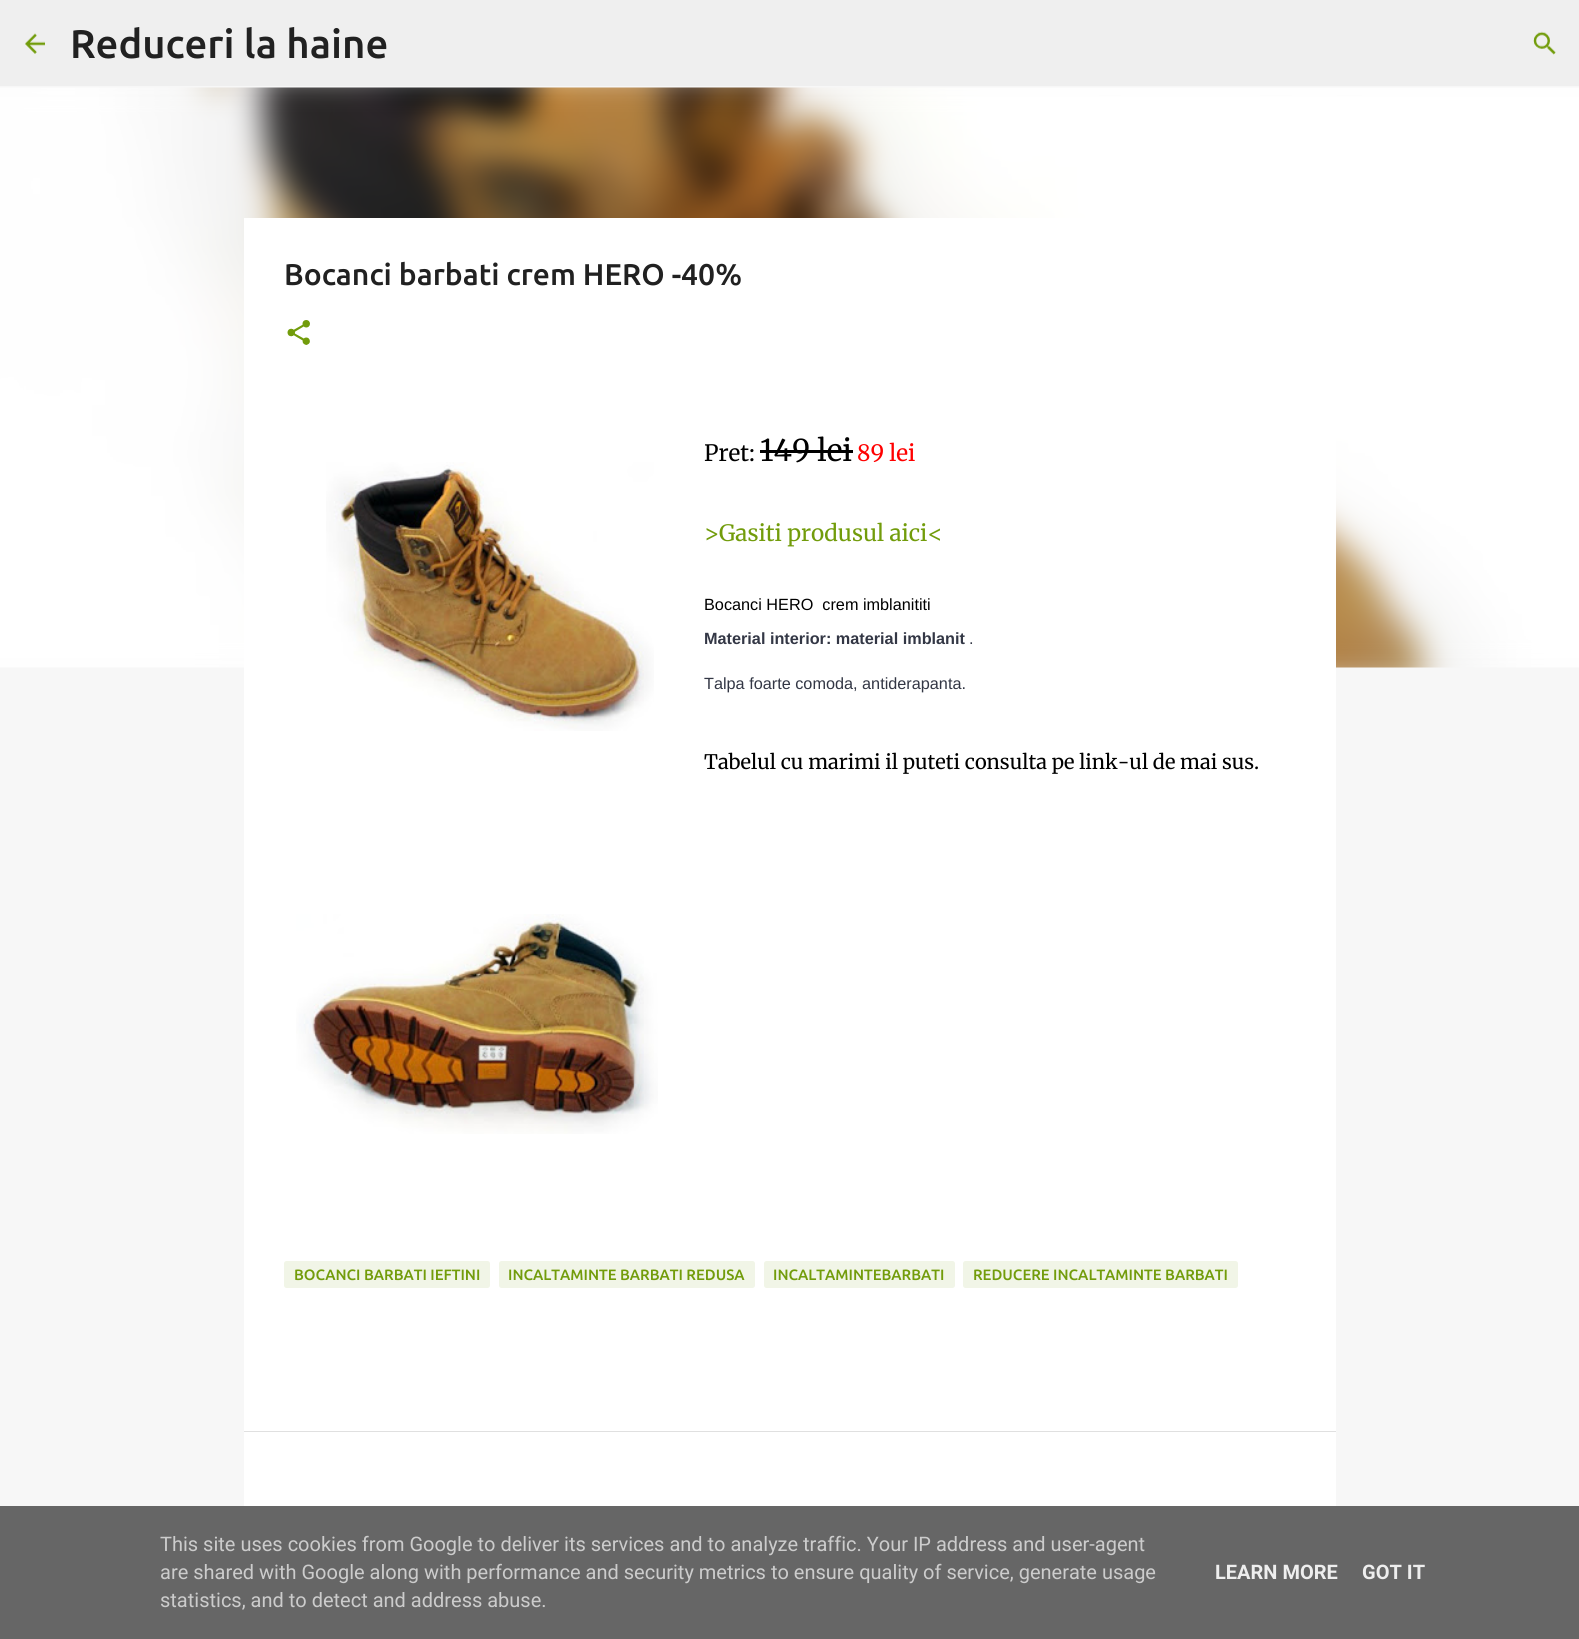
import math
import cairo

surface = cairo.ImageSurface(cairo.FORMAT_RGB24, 1579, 1639)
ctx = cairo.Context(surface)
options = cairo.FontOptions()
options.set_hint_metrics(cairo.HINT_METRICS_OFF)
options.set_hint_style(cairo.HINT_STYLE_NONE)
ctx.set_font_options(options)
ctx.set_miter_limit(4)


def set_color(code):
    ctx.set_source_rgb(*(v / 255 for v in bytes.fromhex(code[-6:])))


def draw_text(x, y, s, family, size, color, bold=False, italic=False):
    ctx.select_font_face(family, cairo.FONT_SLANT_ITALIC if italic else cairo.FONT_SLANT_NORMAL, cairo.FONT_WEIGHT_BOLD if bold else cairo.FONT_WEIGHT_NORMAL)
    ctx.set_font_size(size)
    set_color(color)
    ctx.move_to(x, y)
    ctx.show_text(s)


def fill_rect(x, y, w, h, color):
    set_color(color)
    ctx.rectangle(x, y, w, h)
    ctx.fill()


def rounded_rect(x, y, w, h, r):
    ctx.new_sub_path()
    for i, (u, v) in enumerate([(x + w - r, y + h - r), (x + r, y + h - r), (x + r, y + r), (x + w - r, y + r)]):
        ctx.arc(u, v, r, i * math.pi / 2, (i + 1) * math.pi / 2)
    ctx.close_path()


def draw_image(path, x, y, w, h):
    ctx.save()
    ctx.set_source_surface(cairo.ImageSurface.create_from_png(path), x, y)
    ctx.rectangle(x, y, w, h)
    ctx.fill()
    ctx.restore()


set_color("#f7f7f7")
ctx.paint()
fill_rect(0, 0, 1579, 86, "#efefef")
draw_image("assets/img1.png", 25, 33, 20, 21)
draw_text(70, 58, "Reduceri la haine", "Ubuntu Medium", 40, "#212121")
draw_image("assets/img2.png", 1533, 31, 23, 24)
draw_image("assets/img6.png", 0, 87, 1579, 581)
fill_rect(244, 218, 1092, 1213, "#ffffff")
draw_text(284, 285, "Bocanci barbati crem HERO -40%", "Ubuntu Medium", 30, "#212121")
draw_image("assets/img3.png", 287, 320, 23, 25)
draw_text(704, 461, "Pret:", "Merriweather Light", 22.5, "#000000")
draw_text(760, 461, "149 lei", "Merriweather Light", 30, "#000000")
fill_rect(760, 450, 93, 3, "#000000")
draw_text(857, 461, "89 lei", "Merriweather Light", 22.5, "#ff0000")
draw_image("assets/img4.png", 326, 462, 328, 269)
draw_text(704, 541, ">Gasiti produsul aici<", "Merriweather Light", 22.5, "#729c0b")
draw_text(704, 610, "Bocanci HERO  crem imblanititi", "Liberation Sans", 16.25, "#000000")
draw_text(704, 644, "Material interior: material imblanit", "Liberation Sans", 16.25, "#333745", bold=True)
draw_text(969, 644, ".", "Liberation Sans", 16.25, "#333745")
draw_text(704, 689, "Talpa foarte comoda, antiderapanta.", "Liberation Sans", 16.25, "#333745")
draw_text(704, 769, "Tabelul cu marimi il puteti consulta pe link-ul de mai sus.", "Merriweather Light", 20, "#000000")
draw_image("assets/img5.png", 296, 914, 362, 220)
set_color("#f1f5e7")
rounded_rect(284, 1261, 206, 27, 2.5)
ctx.fill()
draw_text(294, 1280, "BOCANCI BARBATI IEFTINI", "Ubuntu Medium", 15, "#729c0b")
set_color("#f1f5e7")
rounded_rect(499, 1261, 256, 27, 2.5)
ctx.fill()
draw_text(508, 1280, "INCALTAMINTE BARBATI REDUSA", "Ubuntu Medium", 15, "#729c0b")
set_color("#f1f5e7")
rounded_rect(764, 1261, 191, 27, 2.5)
ctx.fill()
draw_text(773, 1280, "INCALTAMINTEBARBATI", "Ubuntu Medium", 15, "#729c0b")
set_color("#f1f5e7")
rounded_rect(963, 1261, 275, 27, 2.5)
ctx.fill()
draw_text(973, 1280, "REDUCERE INCALTAMINTE BARBATI", "Ubuntu Medium", 15, "#729c0b")
fill_rect(244, 1432, 1092, 74, "#ffffff")
fill_rect(244, 1431, 1092, 1, "#e0e0e0")
fill_rect(0, 1506, 1579, 133, "#666666")
draw_text(160, 1551, "This site uses cookies from Google to deliver its services and to analyze traffic. Your IP address and user-agent", "Roboto", 20, "#cccccc")
draw_text(160, 1579, "are shared with Google along with performance and security metrics to ensure quality of service, generate usage", "Roboto", 20, "#cccccc")
draw_text(160, 1607, "statistics, and to detect and address abuse.", "Roboto", 20, "#cccccc")
draw_text(1215, 1579, "LEARN MORE", "Roboto", 20, "#eeeeee", bold=True)
draw_text(1362, 1579, "GOT IT", "Roboto", 20, "#eeeeee", bold=True)
surface.write_to_png("output.png")
